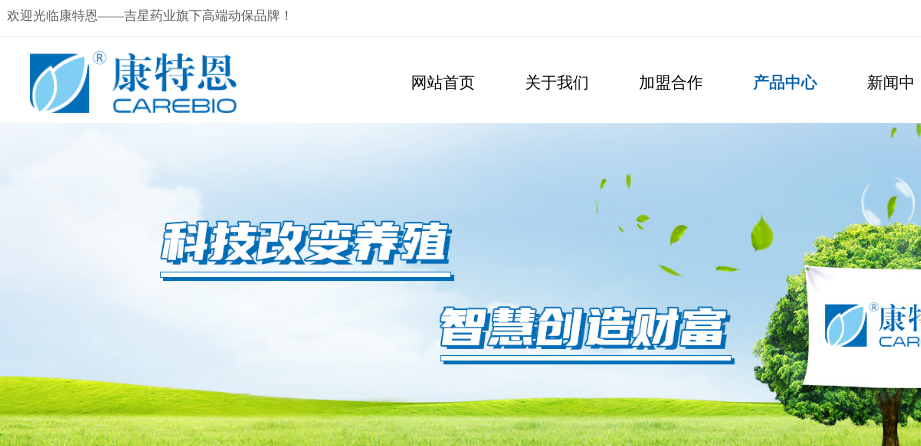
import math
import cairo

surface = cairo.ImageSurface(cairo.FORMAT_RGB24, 921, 446)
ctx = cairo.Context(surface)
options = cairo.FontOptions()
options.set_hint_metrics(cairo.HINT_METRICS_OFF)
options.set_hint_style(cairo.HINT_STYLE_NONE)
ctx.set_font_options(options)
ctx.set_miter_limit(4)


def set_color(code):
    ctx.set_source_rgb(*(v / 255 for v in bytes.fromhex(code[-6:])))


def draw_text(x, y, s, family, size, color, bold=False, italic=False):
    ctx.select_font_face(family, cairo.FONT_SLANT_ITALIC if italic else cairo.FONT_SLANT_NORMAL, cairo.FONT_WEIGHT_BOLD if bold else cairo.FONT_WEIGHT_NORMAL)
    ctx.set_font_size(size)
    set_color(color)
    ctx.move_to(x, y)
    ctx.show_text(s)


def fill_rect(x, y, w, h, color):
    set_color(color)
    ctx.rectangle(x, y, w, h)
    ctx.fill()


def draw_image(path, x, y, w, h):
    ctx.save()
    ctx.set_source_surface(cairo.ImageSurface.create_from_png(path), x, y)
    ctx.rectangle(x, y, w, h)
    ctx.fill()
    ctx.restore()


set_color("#ffffff")
ctx.paint()
draw_text(7, 20, "欢迎光临康特恩", "WenQuanYi Zen Hei Medium", 13, "#5a5a5a")
draw_text(98, 20, "——", "Liberation Serif", 13, "#5a5a5a")
draw_text(124, 20, "吉星药业旗下高端动保品牌！", "WenQuanYi Zen Hei Medium", 13, "#5a5a5a")
fill_rect(0, 36, 921, 1, "#ededed")
draw_image("assets/img1.png", 30, 51, 207, 62)
draw_text(411, 88, "网站首页", "WenQuanYi Zen Hei Medium", 16, "#000000")
draw_text(525, 88, "关于我们", "WenQuanYi Zen Hei Medium", 16, "#000000")
draw_text(639, 88, "加盟合作", "WenQuanYi Zen Hei Medium", 16, "#000000")
draw_text(753, 88, "产品中心", "WenQuanYi Zen Hei", 16, "#005bac", bold=True)
draw_text(867, 88, "新闻中", "WenQuanYi Zen Hei Medium", 16, "#000000")
draw_image("assets/img2.png", 0, 123, 921, 323)
surface.write_to_png("output.png")
